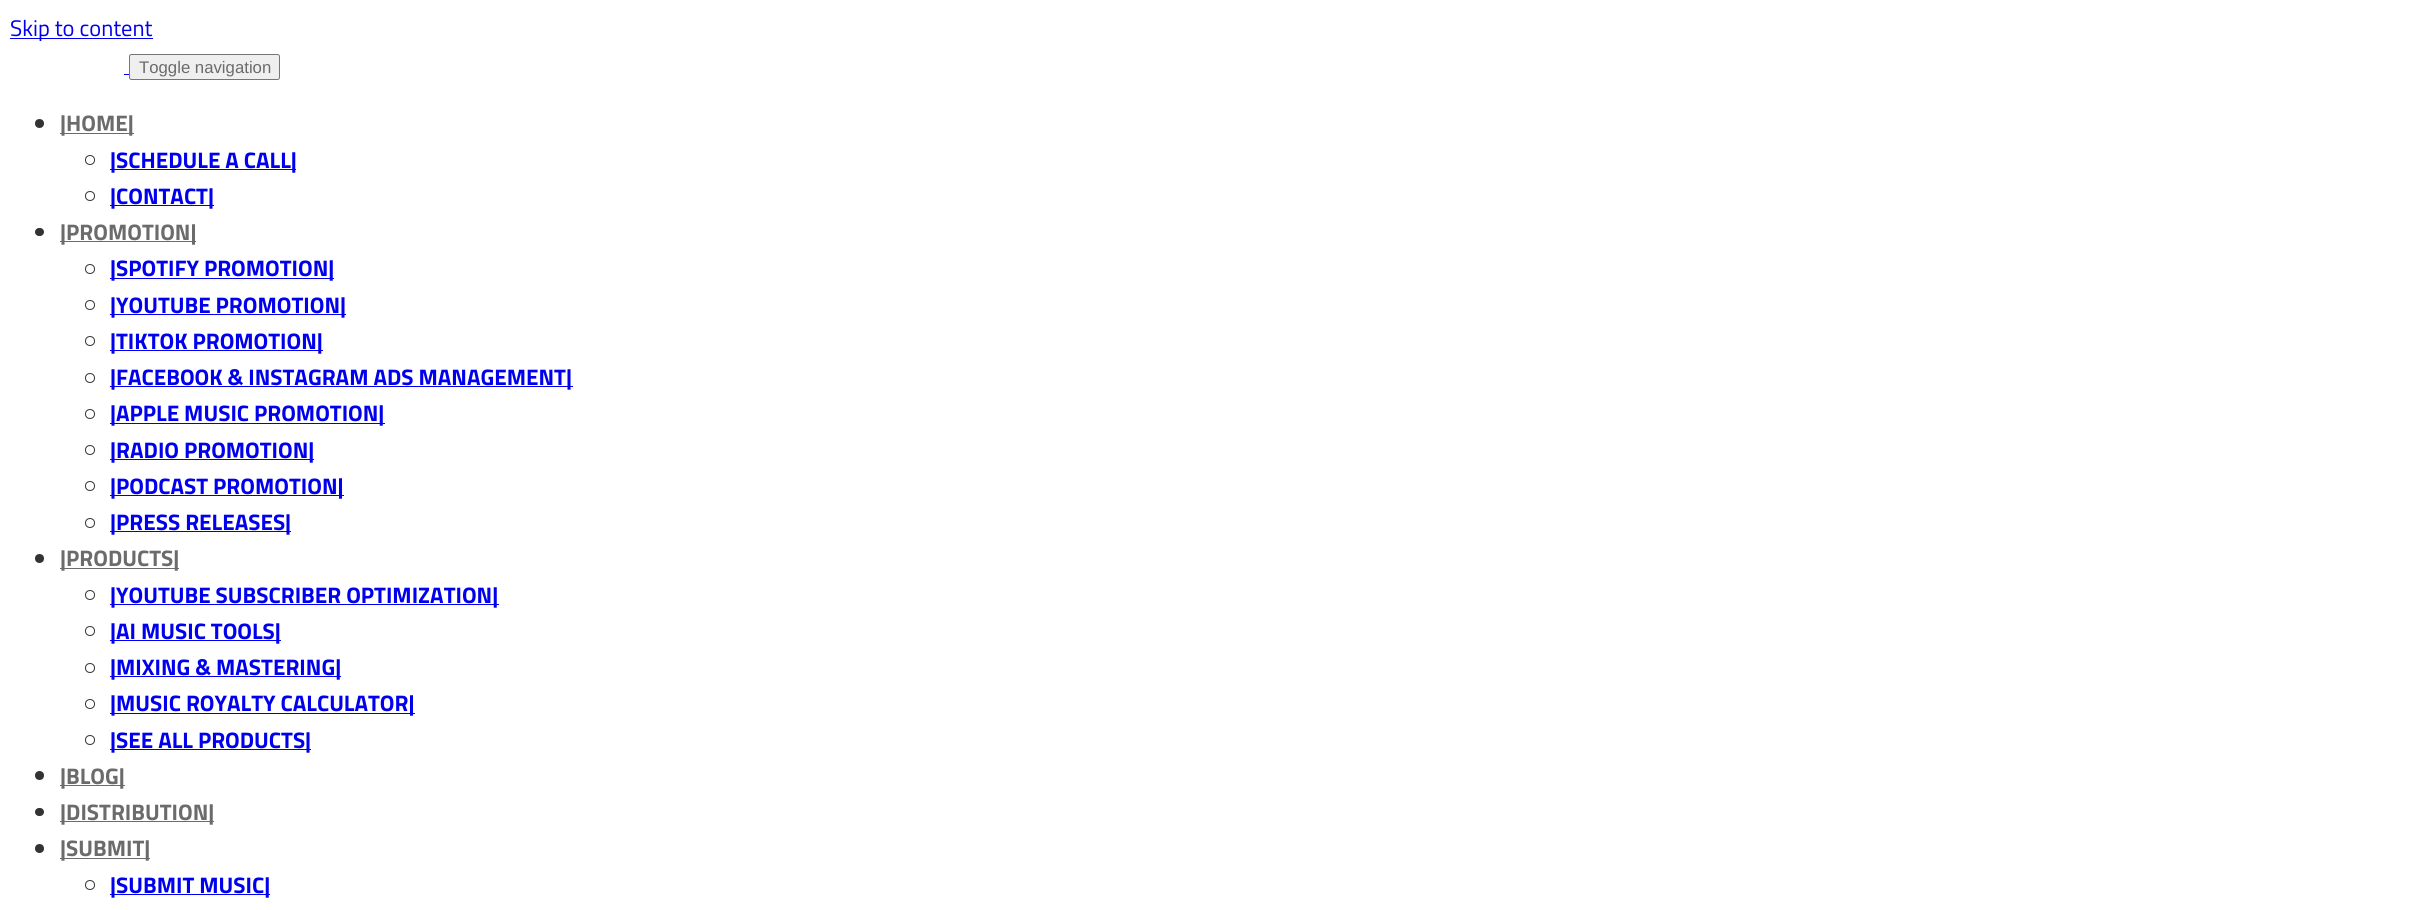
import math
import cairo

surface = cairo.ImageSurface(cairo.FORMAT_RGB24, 2410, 910)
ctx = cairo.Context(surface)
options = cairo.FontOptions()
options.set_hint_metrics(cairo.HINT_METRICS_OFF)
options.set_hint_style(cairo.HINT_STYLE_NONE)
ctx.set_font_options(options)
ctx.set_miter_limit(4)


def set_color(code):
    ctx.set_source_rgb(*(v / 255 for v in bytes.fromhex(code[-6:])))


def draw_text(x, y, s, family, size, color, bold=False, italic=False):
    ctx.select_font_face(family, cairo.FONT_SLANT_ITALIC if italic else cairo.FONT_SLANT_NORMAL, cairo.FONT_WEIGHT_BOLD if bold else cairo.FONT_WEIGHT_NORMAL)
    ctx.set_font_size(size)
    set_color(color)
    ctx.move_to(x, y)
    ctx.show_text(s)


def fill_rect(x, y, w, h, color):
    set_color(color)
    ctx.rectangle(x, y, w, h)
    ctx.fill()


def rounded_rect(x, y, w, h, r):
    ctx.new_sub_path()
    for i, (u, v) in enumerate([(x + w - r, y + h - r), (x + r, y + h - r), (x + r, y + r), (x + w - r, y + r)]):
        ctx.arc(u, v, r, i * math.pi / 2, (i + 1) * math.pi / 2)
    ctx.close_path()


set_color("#ffffff")
ctx.paint()
fill_rect(10, 38, 143, 1, "#0000ee")
draw_text(10, 36, "Skip to content", "Titillium Web", 22.5, "#0000ee")
fill_rect(124, 74, 5, 1, "#0000ee")
set_color("#efefef")
rounded_rect(129.5, 54.5, 150, 25, 2)
ctx.fill_preserve()
set_color("#767676")
ctx.set_line_width(1)
ctx.stroke()
draw_text(139, 73, "Toggle navigation", "Liberation Sans", 16.75, "#6b6b6b")
set_color("#333333")
ctx.new_path()
ctx.arc(39.5, 123.5, 4.5, 0, 2 * math.pi)
ctx.fill()
fill_rect(60, 133, 74, 1, "#6b6b6b")
draw_text(60, 131, "|HOME|", "Titillium Web", 22.5, "#6b6b6b", bold=True)
ctx.new_path()
ctx.arc(90, 160, 4.5, 0, 2 * math.pi)
set_color("#333333")
ctx.stroke()
fill_rect(110, 169, 186, 1, "#0000ee")
draw_text(110, 168, "|SCHEDULE A CALL|", "Titillium Web", 22.5, "#0000ee", bold=True)
ctx.new_path()
ctx.arc(90, 196, 4.5, 0, 2 * math.pi)
set_color("#333333")
ctx.stroke()
fill_rect(110, 205, 104, 1, "#0000ee")
draw_text(110, 204, "|CONTACT|", "Titillium Web", 22.5, "#0000ee", bold=True)
set_color("#333333")
rounded_rect(35, 228, 9, 8, 4)
ctx.fill()
fill_rect(60, 241, 136, 1, "#6b6b6b")
draw_text(60, 240, "|PROMOTION|", "Titillium Web", 22.5, "#6b6b6b", bold=True)
ctx.new_path()
ctx.arc(90, 269, 4.5, 0, 2 * math.pi)
set_color("#333333")
ctx.stroke()
fill_rect(110, 278, 224, 1, "#0000ee")
draw_text(110, 276, "|SPOTIFY PROMOTION|", "Titillium Web", 22.5, "#0000ee", bold=True)
ctx.new_path()
ctx.arc(90, 305, 4.5, 0, 2 * math.pi)
set_color("#333333")
ctx.stroke()
fill_rect(110, 314, 236, 1, "#0000ee")
draw_text(110, 313, "|YOUTUBE PROMOTION|", "Titillium Web", 22.5, "#0000ee", bold=True)
ctx.new_path()
ctx.arc(90, 341, 4.5, 0, 2 * math.pi)
set_color("#333333")
ctx.stroke()
fill_rect(110, 350, 213, 1, "#0000ee")
draw_text(110, 349, "|TIKTOK PROMOTION|", "Titillium Web", 22.5, "#0000ee", bold=True)
ctx.new_path()
ctx.arc(90, 378, 4.5, 0, 2 * math.pi)
set_color("#333333")
ctx.stroke()
fill_rect(110, 386, 463, 1, "#0000ee")
draw_text(110, 385, "|FACEBOOK & INSTAGRAM ADS MANAGEMENT|", "Titillium Web", 22.5, "#0000ee", bold=True)
ctx.new_path()
ctx.arc(90, 414, 4.5, 0, 2 * math.pi)
set_color("#333333")
ctx.stroke()
fill_rect(110, 423, 275, 1, "#0000ee")
draw_text(110, 421, "|APPLE MUSIC PROMOTION|", "Titillium Web", 22.5, "#0000ee", bold=True)
ctx.new_path()
ctx.arc(90, 450, 4.5, 0, 2 * math.pi)
set_color("#333333")
ctx.stroke()
fill_rect(110, 459, 204, 1, "#0000ee")
draw_text(110, 458, "|RADIO PROMOTION|", "Titillium Web", 22.5, "#0000ee", bold=True)
ctx.new_path()
ctx.arc(90, 486, 4.5, 0, 2 * math.pi)
set_color("#333333")
ctx.stroke()
fill_rect(110, 495, 234, 1, "#0000ee")
draw_text(110, 494, "|PODCAST PROMOTION|", "Titillium Web", 22.5, "#0000ee", bold=True)
ctx.new_path()
ctx.arc(90, 523, 4.5, 0, 2 * math.pi)
set_color("#333333")
ctx.stroke()
fill_rect(110, 531, 181, 1, "#0000ee")
draw_text(110, 530, "|PRESS RELEASES|", "Titillium Web", 22.5, "#0000ee", bold=True)
set_color("#333333")
ctx.new_path()
ctx.arc(39.5, 558.5, 4.5, 0, 2 * math.pi)
ctx.fill()
fill_rect(60, 568, 119, 1, "#6b6b6b")
draw_text(60, 566, "|PRODUCTS|", "Titillium Web", 22.5, "#6b6b6b", bold=True)
ctx.new_path()
ctx.arc(90, 595, 4.5, 0, 2 * math.pi)
set_color("#333333")
ctx.stroke()
fill_rect(110, 604, 389, 1, "#0000ee")
draw_text(110, 603, "|YOUTUBE SUBSCRIBER OPTIMIZATION|", "Titillium Web", 22.5, "#0000ee", bold=True)
ctx.new_path()
ctx.arc(90, 631, 4.5, 0, 2 * math.pi)
set_color("#333333")
ctx.stroke()
fill_rect(110, 640, 171, 1, "#0000ee")
draw_text(110, 639, "|AI MUSIC TOOLS|", "Titillium Web", 22.5, "#0000ee", bold=True)
ctx.new_path()
ctx.arc(90, 668, 4.5, 0, 2 * math.pi)
set_color("#333333")
ctx.stroke()
fill_rect(110, 676, 231, 1, "#0000ee")
draw_text(110, 675, "|MIXING & MASTERING|", "Titillium Web", 22.5, "#0000ee", bold=True)
ctx.new_path()
ctx.arc(90, 704, 4.5, 0, 2 * math.pi)
set_color("#333333")
ctx.stroke()
fill_rect(110, 713, 305, 1, "#0000ee")
draw_text(110, 711, "|MUSIC ROYALTY CALCULATOR|", "Titillium Web", 22.5, "#0000ee", bold=True)
ctx.new_path()
ctx.arc(90, 740, 4.5, 0, 2 * math.pi)
set_color("#333333")
ctx.stroke()
fill_rect(110, 749, 201, 1, "#0000ee")
draw_text(110, 748, "|SEE ALL PRODUCTS|", "Titillium Web", 22.5, "#0000ee", bold=True)
set_color("#333333")
ctx.new_path()
ctx.arc(39.5, 775.5, 4.5, 0, 2 * math.pi)
ctx.fill()
fill_rect(60, 785, 65, 1, "#6b6b6b")
draw_text(60, 784, "|BLOG|", "Titillium Web", 22.5, "#6b6b6b", bold=True)
set_color("#333333")
rounded_rect(35, 808, 9, 8, 4)
ctx.fill()
fill_rect(60, 821, 154, 1, "#6b6b6b")
draw_text(60, 820, "|DISTRIBUTION|", "Titillium Web", 22.5, "#6b6b6b", bold=True)
set_color("#333333")
ctx.new_path()
ctx.arc(39.5, 848.5, 4.5, 0, 2 * math.pi)
ctx.fill()
fill_rect(60, 858, 90, 1, "#6b6b6b")
draw_text(60, 856, "|SUBMIT|", "Titillium Web", 22.5, "#6b6b6b", bold=True)
ctx.new_path()
ctx.arc(90, 885, 4.5, 0, 2 * math.pi)
set_color("#333333")
ctx.stroke()
fill_rect(110, 894, 160, 1, "#0000ee")
draw_text(110, 893, "|SUBMIT MUSIC|", "Titillium Web", 22.5, "#0000ee", bold=True)
surface.write_to_png("output.png")
